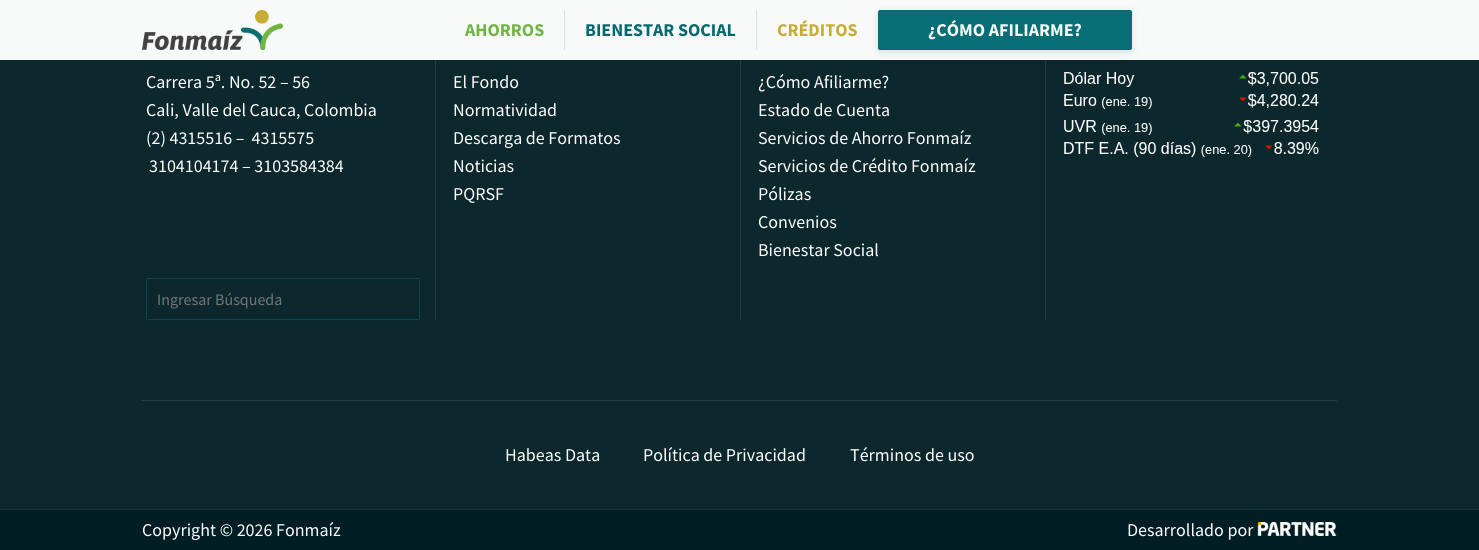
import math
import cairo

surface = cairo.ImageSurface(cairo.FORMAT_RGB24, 1479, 550)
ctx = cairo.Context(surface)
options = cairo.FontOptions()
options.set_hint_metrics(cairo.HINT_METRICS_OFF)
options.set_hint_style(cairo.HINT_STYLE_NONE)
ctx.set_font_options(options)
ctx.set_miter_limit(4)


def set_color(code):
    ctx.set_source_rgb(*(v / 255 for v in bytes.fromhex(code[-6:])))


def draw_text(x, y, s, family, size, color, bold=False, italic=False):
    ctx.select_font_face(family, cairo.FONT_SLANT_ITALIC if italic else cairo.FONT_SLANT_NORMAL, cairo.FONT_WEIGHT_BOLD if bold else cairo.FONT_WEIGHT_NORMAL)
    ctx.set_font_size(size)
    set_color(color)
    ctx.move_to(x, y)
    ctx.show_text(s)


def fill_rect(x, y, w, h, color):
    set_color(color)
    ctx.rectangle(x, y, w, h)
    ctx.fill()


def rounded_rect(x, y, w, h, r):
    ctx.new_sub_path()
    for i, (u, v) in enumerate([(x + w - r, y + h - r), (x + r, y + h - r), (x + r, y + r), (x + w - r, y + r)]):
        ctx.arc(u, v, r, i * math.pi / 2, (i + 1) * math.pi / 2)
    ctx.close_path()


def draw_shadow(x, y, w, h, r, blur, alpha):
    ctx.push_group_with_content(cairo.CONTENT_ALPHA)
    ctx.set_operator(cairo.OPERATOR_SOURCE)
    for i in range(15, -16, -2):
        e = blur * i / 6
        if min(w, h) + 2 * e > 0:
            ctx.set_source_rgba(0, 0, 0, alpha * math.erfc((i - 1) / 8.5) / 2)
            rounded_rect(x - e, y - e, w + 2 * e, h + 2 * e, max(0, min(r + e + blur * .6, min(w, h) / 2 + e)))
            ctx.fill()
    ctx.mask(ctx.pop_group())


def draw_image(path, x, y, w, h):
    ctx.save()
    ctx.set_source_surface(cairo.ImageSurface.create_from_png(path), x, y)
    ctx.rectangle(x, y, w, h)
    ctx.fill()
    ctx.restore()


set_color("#0c282d")
ctx.paint()
fill_rect(0, 0, 1479, 60, "#f8f9f9")
draw_image("assets/img1.png", 142, 10, 141, 40)
draw_text(465, 36, "AHORROS", "Source Sans Pro", 18, "#70b544", bold=True)
fill_rect(564, 10, 1, 40, "#dfe0e0")
draw_text(585, 36, "BIENESTAR SOCIAL", "Source Sans Pro", 18, "#00686f", bold=True)
fill_rect(756, 10, 1, 40, "#e0e1e1")
draw_text(777, 36, "CRÉDITOS", "Source Sans Pro", 18, "#c7ac34", bold=True)
fill_rect(1045, 60, 1, 260, "#243e42")
ctx.save()
ctx.set_fill_rule(cairo.FILL_RULE_EVEN_ODD)
ctx.new_path()
ctx.move_to(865, 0)
ctx.line_to(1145, 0)
ctx.line_to(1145, 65)
ctx.line_to(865, 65)
ctx.close_path()
ctx.move_to(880, 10)
ctx.line_to(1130, 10)
ctx.curve_to(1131, 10, 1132, 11, 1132, 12)
ctx.line_to(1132, 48)
ctx.curve_to(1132, 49, 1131, 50, 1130, 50)
ctx.line_to(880, 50)
ctx.curve_to(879, 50, 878, 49, 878, 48)
ctx.line_to(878, 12)
ctx.curve_to(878, 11, 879, 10, 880, 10)
ctx.close_path()
ctx.clip()
set_color("#000000")
draw_shadow(878, 12, 254, 40, 2, 4, 0.12)
ctx.restore()
ctx.set_source_rgba(0, 0.416, 0.443, 0.97)
rounded_rect(878, 10, 254, 40, 2)
ctx.fill()
draw_text(928, 36, "¿CÓMO AFILIARME?", "Source Sans Pro", 18, "#f8fbfb", bold=True)
draw_text(146, 88, "Carrera 5ª. No. 52 – 56", "Source Sans Pro", 18, "#ffffff")
draw_text(146, 116, "Cali, Valle del Cauca, Colombia", "Source Sans Pro", 18, "#ffffff")
draw_text(146, 144, "(2) 4315516 –  4315575", "Source Sans Pro", 18, "#ffffff")
draw_text(149, 172, "3104104174 – 3103584384", "Source Sans Pro", 18, "#ffffff")
rounded_rect(146.5, 278.5, 273, 41, 1.5)
set_color("#06494f")
ctx.set_line_width(1)
ctx.stroke()
draw_text(157, 305, "Ingresar Búsqueda", "Source Sans Pro", 16, "#757575")
fill_rect(435, 60, 1, 260, "#243e42")
draw_text(453, 88, "El Fondo", "Source Sans Pro", 18, "#ffffff")
draw_text(453, 116, "Normatividad", "Source Sans Pro", 18, "#ffffff")
draw_text(453, 144, "Descarga de Formatos", "Source Sans Pro", 18, "#ffffff")
draw_text(453, 172, "Noticias", "Source Sans Pro", 18, "#ffffff")
draw_text(453, 200, "PQRSF", "Source Sans Pro", 18, "#ffffff")
fill_rect(740, 60, 1, 260, "#243e42")
draw_text(758, 88, "¿Cómo Afiliarme?", "Source Sans Pro", 18, "#ffffff")
draw_text(758, 116, "Estado de Cuenta", "Source Sans Pro", 18, "#ffffff")
draw_text(758, 144, "Servicios de Ahorro Fonmaíz", "Source Sans Pro", 18, "#ffffff")
draw_text(758, 172, "Servicios de Crédito Fonmaíz", "Source Sans Pro", 18, "#ffffff")
draw_text(758, 200, "Pólizas", "Source Sans Pro", 18, "#ffffff")
draw_text(758, 228, "Convenios", "Source Sans Pro", 18, "#ffffff")
draw_text(758, 256, "Bienestar Social", "Source Sans Pro", 18, "#ffffff")
draw_image("assets/img2.png", 1064, 72, 255, 85)
fill_rect(142, 400, 1195, 1, "#243e42")
draw_text(505, 461, "Habeas Data", "Source Sans Pro", 18, "#ffffff")
draw_text(643, 461, "Política de Privacidad", "Source Sans Pro", 18, "#ffffff")
draw_text(850, 461, "Términos de uso", "Source Sans Pro", 18, "#ffffff")
fill_rect(0, 510, 1479, 40, "#001e23")
fill_rect(0, 509, 1479, 1, "#1a3539")
draw_text(142, 536, "Copyright © 2026 Fonmaíz", "Source Sans Pro", 18, "#ffffff")
draw_text(1127, 536, "Desarrollado por", "Source Sans Pro", 18, "#ffffff")
draw_image("assets/img3.png", 1257, 522, 80, 14)
surface.write_to_png("output.png")
